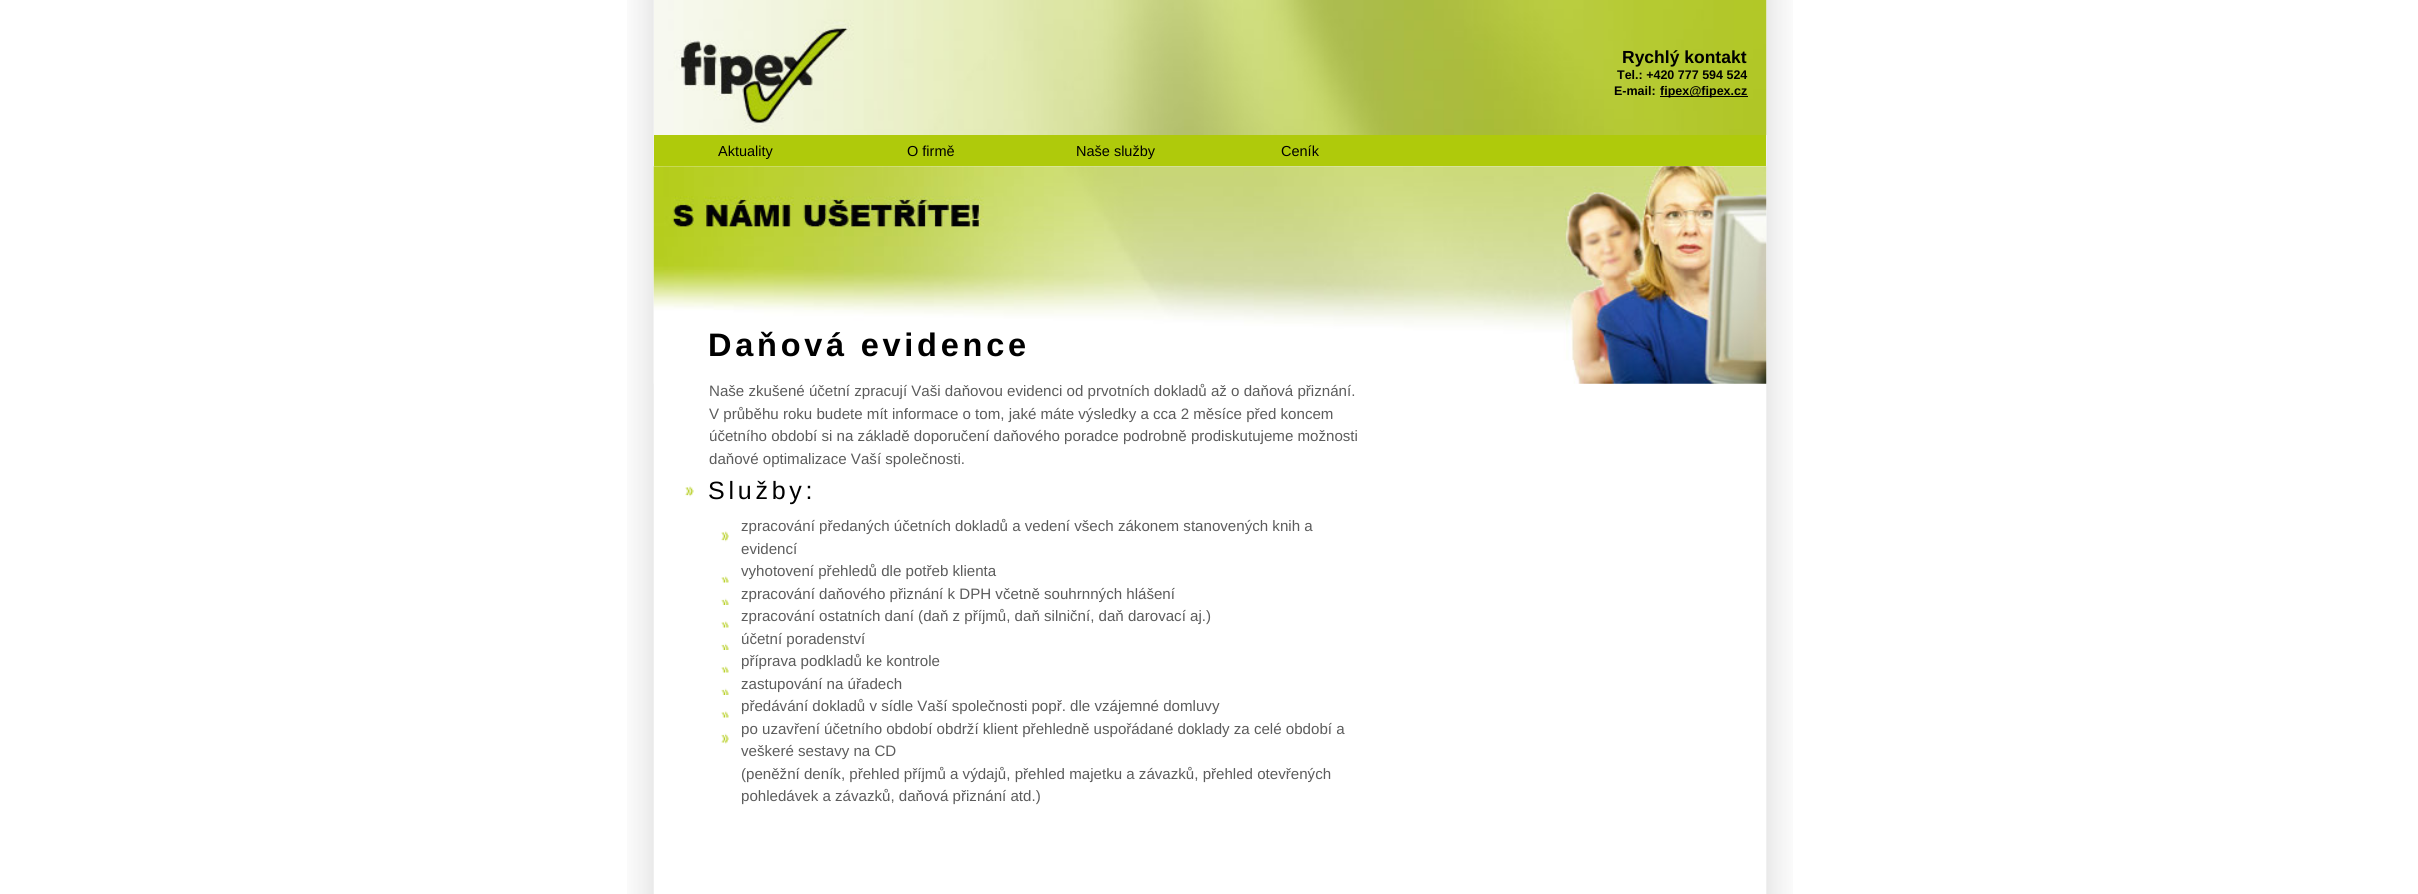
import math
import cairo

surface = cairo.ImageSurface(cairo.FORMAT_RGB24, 2418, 894)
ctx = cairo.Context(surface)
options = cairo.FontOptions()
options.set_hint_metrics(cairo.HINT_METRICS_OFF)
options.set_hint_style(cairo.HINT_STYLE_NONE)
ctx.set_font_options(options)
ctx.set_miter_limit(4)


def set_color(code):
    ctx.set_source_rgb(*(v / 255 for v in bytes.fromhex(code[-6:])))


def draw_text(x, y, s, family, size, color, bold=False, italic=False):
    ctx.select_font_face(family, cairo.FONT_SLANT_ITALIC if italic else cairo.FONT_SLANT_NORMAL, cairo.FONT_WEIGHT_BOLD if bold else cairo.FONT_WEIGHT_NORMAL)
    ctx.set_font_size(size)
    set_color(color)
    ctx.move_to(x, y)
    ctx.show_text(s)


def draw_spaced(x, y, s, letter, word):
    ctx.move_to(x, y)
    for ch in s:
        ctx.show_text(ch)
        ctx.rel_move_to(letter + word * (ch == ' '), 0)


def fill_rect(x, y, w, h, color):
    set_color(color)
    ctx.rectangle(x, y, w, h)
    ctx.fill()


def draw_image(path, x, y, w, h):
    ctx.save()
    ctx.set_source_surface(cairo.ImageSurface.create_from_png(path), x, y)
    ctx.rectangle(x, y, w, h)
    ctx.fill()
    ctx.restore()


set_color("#ffffff")
ctx.paint()
draw_image("assets/img1.png", 627, 0, 1166, 894)
draw_image("assets/img2.png", 654, 0, 1113, 135)
draw_text(1622, 63, "Rychlý kontakt", "Liberation Sans", 17.5, "#000000", bold=True)
draw_text(1617, 79, "Tel.: +420 777 594 524", "Liberation Sans", 12.5, "#000000", bold=True)
draw_text(1614, 95, "E-mail:", "Liberation Sans", 12.5, "#000000", bold=True)
fill_rect(1660, 96, 88, 1, "#000000")
draw_text(1660, 95, "fipex@fipex.cz", "Liberation Sans", 12.5, "#000000", bold=True)
fill_rect(654, 135, 1112, 31, "#afca0b")
draw_text(718, 156, "Aktuality", "Liberation Sans", 14.5, "#000000")
draw_text(907, 156, "O firmě", "Liberation Sans", 14.5, "#000000")
draw_text(1076, 156, "Naše služby", "Liberation Sans", 14.5, "#000000")
draw_text(1281, 156, "Ceník", "Liberation Sans", 14.5, "#000000")
draw_image("assets/img3.png", 653, 166, 1114, 104)
draw_image("assets/img4.png", 653, 270, 1114, 114)
ctx.select_font_face("Liberation Sans", cairo.FONT_SLANT_NORMAL, cairo.FONT_WEIGHT_BOLD)
ctx.set_font_size(32.5)
draw_spaced(708, 356, "Daňová evidence", 3.75, 0)
draw_text(709, 396, "Naše zkušené účetní zpracují Vaši daňovou evidenci od prvotních dokladů až o daňová přiznání.", "Liberation Sans", 15.1, "#5c5c5c")
draw_text(709, 419, "V průběhu roku budete mít informace o tom, jaké máte výsledky a cca 2 měsíce před koncem", "Liberation Sans", 15.1, "#5c5c5c")
draw_text(709, 441, "účetního období si na základě doporučení daňového poradce podrobně prodiskutujeme možnosti", "Liberation Sans", 15.1, "#5c5c5c")
draw_text(709, 464, "daňové optimalizace Vaší společnosti.", "Liberation Sans", 15.1, "#5c5c5c")
draw_image("assets/img5.png", 685, 486, 9, 11)
ctx.set_font_size(25)
set_color("#000000")
draw_spaced(708, 499, "Služby:", 3.75, 0)
draw_image("assets/img6.png", 721, 531, 8, 11)
draw_text(741, 531, "zpracování předaných účetních dokladů a vedení všech zákonem stanovených knih a", "Liberation Sans", 15.1, "#5c5c5c")
draw_text(741, 554, "evidencí", "Liberation Sans", 15.1, "#5c5c5c")
draw_image("assets/img7.png", 721, 576, 8, 7)
draw_text(741, 576, "vyhotovení přehledů dle potřeb klienta", "Liberation Sans", 15.1, "#5c5c5c")
draw_image("assets/img8.png", 721, 598, 8, 7)
draw_text(741, 599, "zpracování daňového přiznání k DPH včetně souhrnných hlášení", "Liberation Sans", 15.1, "#5c5c5c")
draw_image("assets/img7.png", 721, 621, 8, 7)
draw_text(741, 621, "zpracování ostatních daní (daň z příjmů, daň silniční, daň darovací aj.)", "Liberation Sans", 15.1, "#5c5c5c")
draw_image("assets/img8.png", 721, 643, 8, 7)
draw_text(741, 644, "účetní poradenství", "Liberation Sans", 15.1, "#5c5c5c")
draw_image("assets/img7.png", 721, 666, 8, 7)
draw_text(741, 666, "příprava podkladů ke kontrole", "Liberation Sans", 15.1, "#5c5c5c")
draw_image("assets/img8.png", 721, 688, 8, 7)
draw_text(741, 689, "zastupování na úřadech", "Liberation Sans", 15.1, "#5c5c5c")
draw_image("assets/img7.png", 721, 711, 8, 7)
draw_text(741, 711, "předávání dokladů v sídle Vaší společnosti popř. dle vzájemné domluvy", "Liberation Sans", 15.1, "#5c5c5c")
draw_image("assets/img9.png", 721, 733, 8, 11)
draw_text(741, 734, "po uzavření účetního období obdrží klient přehledně uspořádané doklady za celé období a", "Liberation Sans", 15.1, "#5c5c5c")
draw_text(741, 756, "veškeré sestavy na CD", "Liberation Sans", 15.1, "#5c5c5c")
draw_text(741, 779, "(peněžní deník, přehled příjmů a výdajů, přehled majetku a závazků, přehled otevřených", "Liberation Sans", 15.1, "#5c5c5c")
draw_text(741, 801, "pohledávek a závazků, daňová přiznání atd.)", "Liberation Sans", 15.1, "#5c5c5c")
surface.write_to_png("output.png")
